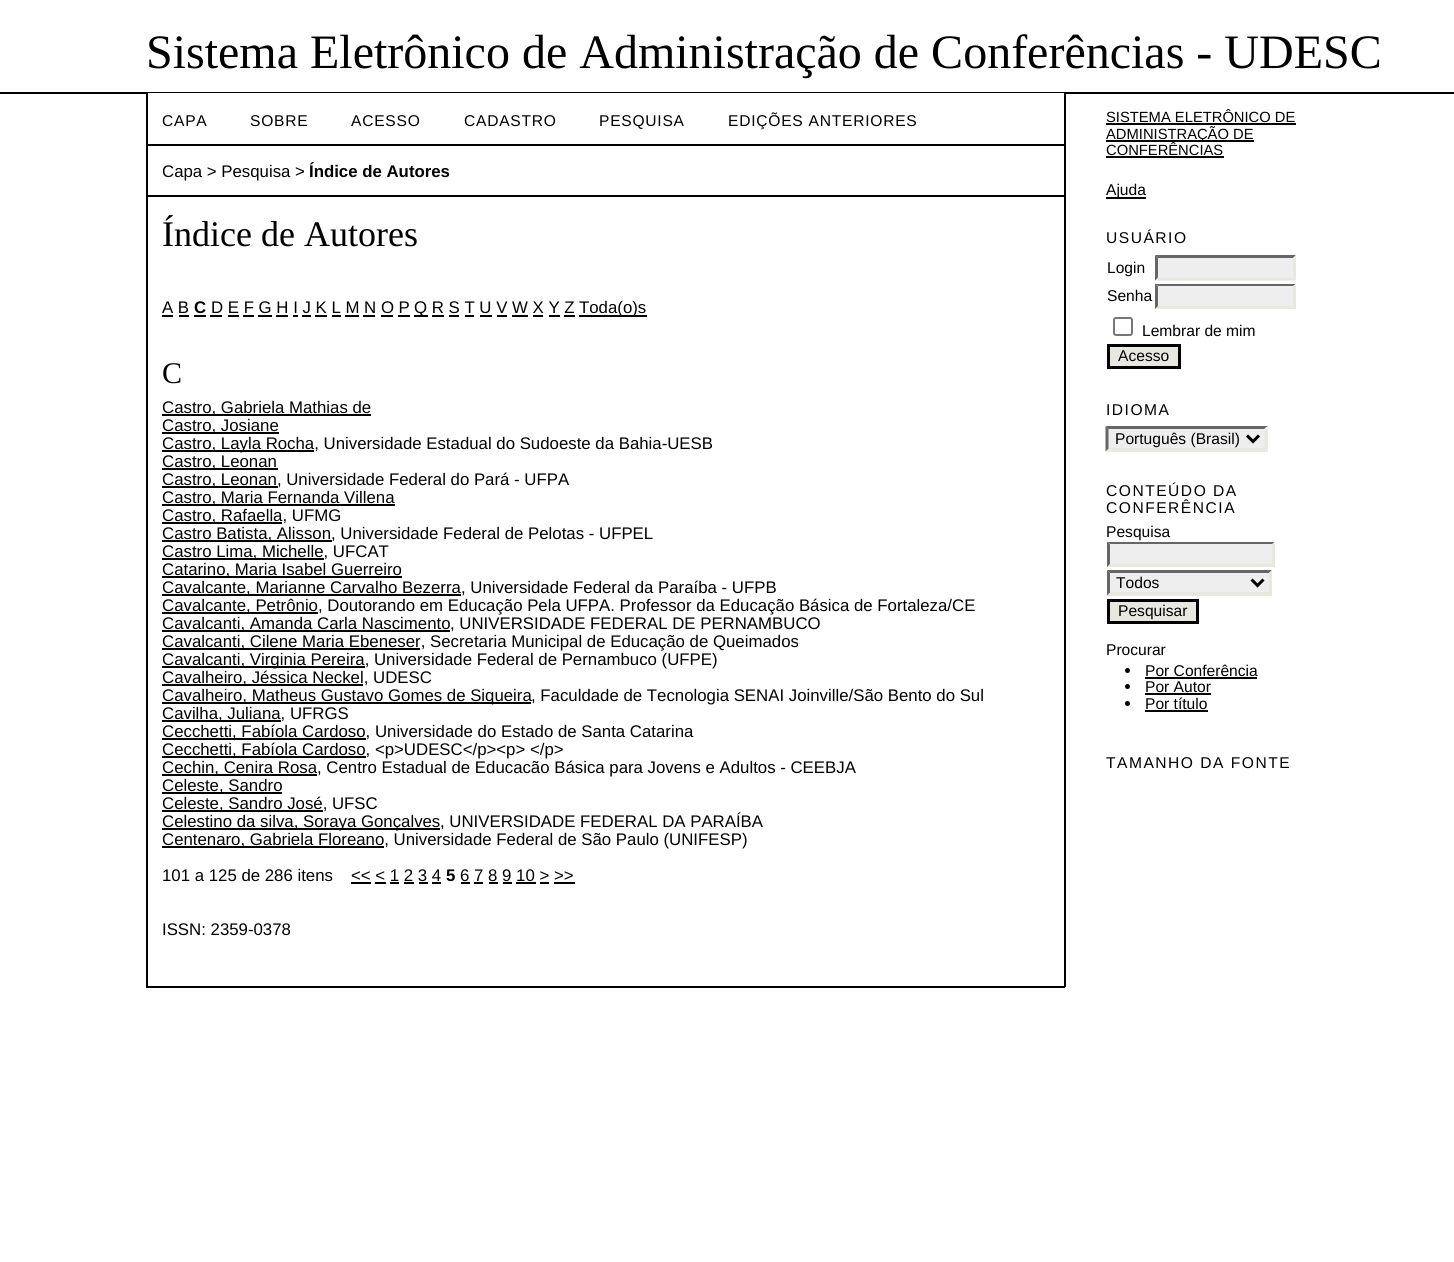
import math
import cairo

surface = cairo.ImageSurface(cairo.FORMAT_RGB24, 1454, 1262)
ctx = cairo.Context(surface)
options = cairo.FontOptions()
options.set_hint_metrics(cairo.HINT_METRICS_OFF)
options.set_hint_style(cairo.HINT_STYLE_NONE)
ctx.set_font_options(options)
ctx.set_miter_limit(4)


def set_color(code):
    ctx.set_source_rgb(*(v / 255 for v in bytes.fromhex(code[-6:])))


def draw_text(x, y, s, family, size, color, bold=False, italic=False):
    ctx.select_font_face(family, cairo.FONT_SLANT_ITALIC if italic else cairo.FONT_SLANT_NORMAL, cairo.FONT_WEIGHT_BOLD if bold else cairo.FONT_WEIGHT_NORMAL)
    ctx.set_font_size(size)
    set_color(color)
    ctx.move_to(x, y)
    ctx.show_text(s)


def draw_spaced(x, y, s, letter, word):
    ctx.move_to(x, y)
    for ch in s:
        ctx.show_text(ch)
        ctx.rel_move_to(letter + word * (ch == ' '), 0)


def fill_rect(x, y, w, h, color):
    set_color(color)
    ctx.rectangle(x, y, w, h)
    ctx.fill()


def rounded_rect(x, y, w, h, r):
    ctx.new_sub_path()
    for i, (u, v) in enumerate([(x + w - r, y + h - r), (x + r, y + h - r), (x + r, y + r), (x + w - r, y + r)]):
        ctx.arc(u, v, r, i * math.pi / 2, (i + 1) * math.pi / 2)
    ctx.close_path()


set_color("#ffffff")
ctx.paint()
fill_rect(0, 92, 1454, 2, "#000000")
draw_text(146, 68, "Sistema Eletrônico de Administração de Conferências - UDESC", "Liberation Serif", 48, "#000000")
fill_rect(148, 93, 916, 1, "#ffffff")
fill_rect(1064, 93, 2, 894, "#000000")
fill_rect(146, 986, 919, 2, "#000000")
fill_rect(146, 93, 2, 894, "#000000")
fill_rect(147, 144, 917, 2, "#000000")
ctx.select_font_face("Liberation Sans")
ctx.set_font_size(15.6)
draw_spaced(162, 126, "CAPA", 0.75, 0)
draw_spaced(250, 126, "SOBRE", 0.75, 0)
draw_spaced(351, 126, "ACESSO", 0.75, 0)
draw_spaced(464, 126, "CADASTRO", 0.75, 0)
draw_spaced(599, 126, "PESQUISA", 0.75, 0)
draw_spaced(728, 126, "EDIÇÕES ANTERIORES", 0.75, 0)
fill_rect(147, 195, 917, 2, "#000000")
draw_text(162, 177, "Capa > Pesquisa >", "Liberation Sans", 16.8, "#000000")
draw_text(309, 177, "Índice de Autores", "Liberation Sans", 16.8, "#000000", bold=True)
draw_text(162, 246, "Índice de Autores", "Liberation Serif", 36, "#000000")
draw_text(162, 313, "A B", "Liberation Sans", 16.8, "#000000")
fill_rect(162, 315, 11, 2, "#000000")
draw_text(194, 313, "C", "Liberation Sans", 16.8, "#000000", bold=True)
fill_rect(194, 315, 12, 2, "#000000")
draw_text(211, 313, "D E F G H I J K L M N O P", "Liberation Sans", 16.8, "#000000")
fill_rect(210, 315, 12, 2, "#000000")
fill_rect(414, 315, 14, 2, "#000000")
draw_text(414, 313, "Q R S T U V W X Y Z", "Liberation Sans", 16.8, "#000000")
fill_rect(579, 315, 68, 2, "#000000")
draw_text(579, 313, "Toda(o)s", "Liberation Sans", 16.8, "#000000")
fill_rect(179, 315, 10, 2, "#000000")
fill_rect(228, 315, 11, 2, "#000000")
fill_rect(243, 315, 11, 2, "#000000")
fill_rect(258, 315, 14, 2, "#000000")
fill_rect(276, 315, 12, 2, "#000000")
fill_rect(293, 315, 5, 2, "#000000")
fill_rect(302, 315, 9, 2, "#000000")
fill_rect(315, 315, 12, 2, "#000000")
fill_rect(332, 315, 9, 2, "#000000")
fill_rect(345, 315, 14, 2, "#000000")
fill_rect(363, 315, 12, 2, "#000000")
fill_rect(381, 315, 12, 2, "#000000")
fill_rect(398, 315, 12, 2, "#000000")
fill_rect(432, 315, 12, 2, "#000000")
fill_rect(449, 315, 10, 2, "#000000")
fill_rect(465, 315, 9, 2, "#000000")
fill_rect(480, 315, 12, 2, "#000000")
fill_rect(497, 315, 10, 2, "#000000")
fill_rect(512, 315, 16, 2, "#000000")
fill_rect(533, 315, 10, 2, "#000000")
fill_rect(549, 315, 11, 2, "#000000")
fill_rect(564, 315, 11, 2, "#000000")
draw_text(162, 383, "C", "Liberation Serif", 30, "#000000")
fill_rect(162, 414, 209, 2, "#000000")
draw_text(162, 413, "Castro, Gabriela Mathias de", "Liberation Sans", 16.8, "#000000")
fill_rect(162, 432, 117, 2, "#000000")
draw_text(162, 431, "Castro, Josiane", "Liberation Sans", 16.8, "#000000")
fill_rect(162, 450, 152, 2, "#000000")
draw_text(162, 449, "Castro, Layla Rocha, Universidade Estadual do Sudoeste da Bahia-UESB", "Liberation Sans", 16.8, "#000000")
fill_rect(162, 468, 116, 2, "#000000")
draw_text(162, 467, "Castro, Leonan", "Liberation Sans", 16.8, "#000000")
fill_rect(162, 486, 116, 2, "#000000")
draw_text(162, 485, "Castro, Leonan, Universidade Federal do Pará - UFPA", "Liberation Sans", 16.8, "#000000")
fill_rect(162, 504, 233, 2, "#000000")
draw_text(162, 503, "Castro, Maria Fernanda Villena", "Liberation Sans", 16.8, "#000000")
fill_rect(162, 522, 120, 2, "#000000")
draw_text(162, 521, "Castro, Rafaella, UFMG", "Liberation Sans", 16.8, "#000000")
fill_rect(162, 540, 170, 2, "#000000")
draw_text(162, 539, "Castro Batista, Alisson, Universidade Federal de Pelotas - UFPEL", "Liberation Sans", 16.8, "#000000")
fill_rect(162, 558, 162, 2, "#000000")
draw_text(162, 557, "Castro Lima, Michelle, UFCAT", "Liberation Sans", 16.8, "#000000")
fill_rect(162, 576, 240, 2, "#000000")
draw_text(162, 575, "Catarino, Maria Isabel Guerreiro", "Liberation Sans", 16.8, "#000000")
fill_rect(162, 594, 299, 2, "#000000")
draw_text(162, 593, "Cavalcante, Marianne Carvalho Bezerra", "Liberation Sans", 16.8, "#000000")
draw_text(461, 593, ", Universidade Federal da Paraíba - UFPB", "Liberation Sans", 16.8, "#000000")
fill_rect(162, 612, 156, 2, "#000000")
draw_text(162, 611, "Cavalcante, Petrônio, Doutorando em Educação Pela UFPA. Professor da Educação Básica de Fortaleza/CE", "Liberation Sans", 16.8, "#000000")
fill_rect(162, 630, 288, 2, "#000000")
draw_text(162, 629, "Cavalcanti, Amanda Carla Nascimento", "Liberation Sans", 16.8, "#000000")
draw_text(450, 629, ", UNIVERSIDADE FEDERAL DE PERNAMBUCO", "Liberation Sans", 16.8, "#000000")
fill_rect(162, 648, 258, 2, "#000000")
draw_text(162, 647, "Cavalcanti, Cilene Maria Ebeneser, Secretaria Municipal de Educação de Queimados", "Liberation Sans", 16.8, "#000000")
fill_rect(162, 666, 203, 2, "#000000")
draw_text(162, 665, "Cavalcanti, Virginia Pereira, Universidade Federal de Pernambuco (UFPE)", "Liberation Sans", 16.8, "#000000")
fill_rect(162, 684, 201, 2, "#000000")
draw_text(162, 683, "Cavalheiro, Jéssica Neckel, UDESC", "Liberation Sans", 16.8, "#000000")
fill_rect(162, 702, 369, 2, "#000000")
draw_text(162, 701, "Cavalheiro, Matheus Gustavo Gomes de Siqueira", "Liberation Sans", 16.8, "#000000")
draw_text(531, 701, ", Faculdade de Tecnologia SENAI Joinville/São Bento do Sul", "Liberation Sans", 16.8, "#000000")
fill_rect(162, 720, 119, 2, "#000000")
draw_text(162, 719, "Cavilha, Juliana, UFRGS", "Liberation Sans", 16.8, "#000000")
fill_rect(162, 738, 204, 2, "#000000")
draw_text(162, 737, "Cecchetti, Fabíola Cardoso, Universidade do Estado de Santa Catarina", "Liberation Sans", 16.8, "#000000")
fill_rect(162, 756, 204, 2, "#000000")
draw_text(162, 755, "Cecchetti, Fabíola Cardoso, <p>UDESC</p><p> </p>", "Liberation Sans", 16.8, "#000000")
fill_rect(162, 774, 155, 2, "#000000")
draw_text(162, 773, "Cechin, Cenira Rosa, Centro Estadual de Educacão Básica para Jovens e Adultos - CEEBJA", "Liberation Sans", 16.8, "#000000")
fill_rect(162, 792, 120, 2, "#000000")
draw_text(162, 791, "Celeste, Sandro", "Liberation Sans", 16.8, "#000000")
fill_rect(162, 810, 161, 2, "#000000")
draw_text(162, 809, "Celeste, Sandro José, UFSC", "Liberation Sans", 16.8, "#000000")
fill_rect(162, 828, 278, 2, "#000000")
draw_text(162, 827, "Celestino da silva, Soraya Gonçalves", "Liberation Sans", 16.8, "#000000")
draw_text(440, 827, ", UNIVERSIDADE FEDERAL DA PARAÍBA", "Liberation Sans", 16.8, "#000000")
fill_rect(162, 846, 222, 2, "#000000")
draw_text(162, 845, "Centenaro, Gabriela Floreano, Universidade Federal de São Paulo (UNIFESP)", "Liberation Sans", 16.8, "#000000")
draw_text(162, 881, "101 a 125 de 286 itens", "Liberation Sans", 16.8, "#000000")
draw_text(351, 881, "<< < 1 2 3 4", "Liberation Sans", 16.8, "#000000")
fill_rect(351, 882, 20, 2, "#000000")
draw_text(446, 881, "5", "Liberation Sans", 16.8, "#000000", bold=True)
draw_text(460, 881, "6 7 8 9 10 > >>", "Liberation Sans", 16.8, "#000000")
fill_rect(461, 882, 9, 2, "#000000")
fill_rect(375, 882, 11, 2, "#000000")
fill_rect(390, 882, 9, 2, "#000000")
fill_rect(404, 882, 10, 2, "#000000")
fill_rect(419, 882, 9, 2, "#000000")
fill_rect(432, 882, 9, 2, "#000000")
fill_rect(474, 882, 9, 2, "#000000")
fill_rect(489, 882, 9, 2, "#000000")
fill_rect(503, 882, 9, 2, "#000000")
fill_rect(516, 882, 20, 2, "#000000")
fill_rect(540, 882, 9, 2, "#000000")
fill_rect(554, 882, 21, 2, "#000000")
draw_text(162, 935, "ISSN: 2359-0378", "Liberation Sans", 16.8, "#000000")
draw_text(1106, 122, "SISTEMA ELETRÔNICO DE", "Liberation Sans", 14.75, "#000000")
fill_rect(1106, 123, 190, 2, "#000000")
fill_rect(1106, 140, 148, 2, "#000000")
draw_text(1106, 139, "ADMINISTRAÇÃO DE", "Liberation Sans", 14.75, "#000000")
draw_text(1106, 155, "CONFERÊNCIAS", "Liberation Sans", 14.75, "#000000")
fill_rect(1106, 156, 118, 2, "#000000")
fill_rect(1106, 197, 40, 2, "#000000")
draw_text(1106, 195, "Ajuda", "Liberation Sans", 15.6, "#000000")
draw_spaced(1106, 243, "USUÁRIO", 1.5, 0)
draw_text(1107, 273, "Login", "Liberation Sans", 15.6, "#000000")
fill_rect(1155, 255, 141, 26, "#eeeeee")
set_color("#666666")
ctx.new_path()
ctx.move_to(1155, 255)
ctx.line_to(1296, 255)
ctx.line_to(1293, 258)
ctx.line_to(1158, 258)
ctx.close_path()
ctx.fill()
set_color("#e8e8e1")
ctx.new_path()
ctx.move_to(1296, 255)
ctx.line_to(1296, 280.5)
ctx.line_to(1293, 277.5)
ctx.line_to(1293, 258)
ctx.close_path()
ctx.fill()
ctx.new_path()
ctx.move_to(1296, 280)
ctx.line_to(1155, 280)
ctx.line_to(1158, 278)
ctx.line_to(1293, 278)
ctx.close_path()
ctx.fill()
set_color("#666666")
ctx.new_path()
ctx.move_to(1155, 280.5)
ctx.line_to(1155, 255)
ctx.line_to(1158, 258)
ctx.line_to(1158, 277.5)
ctx.close_path()
ctx.fill()
draw_text(1107, 301, "Senha", "Liberation Sans", 15.6, "#000000")
fill_rect(1155, 284, 141, 25, "#eeeeee")
set_color("#666666")
ctx.new_path()
ctx.move_to(1155, 284)
ctx.line_to(1296, 284)
ctx.line_to(1293, 286)
ctx.line_to(1158, 286)
ctx.close_path()
ctx.fill()
set_color("#e8e8e1")
ctx.new_path()
ctx.move_to(1296, 283.5)
ctx.line_to(1296, 309)
ctx.line_to(1293, 306)
ctx.line_to(1293, 286.5)
ctx.close_path()
ctx.fill()
ctx.new_path()
ctx.move_to(1296, 309)
ctx.line_to(1155, 309)
ctx.line_to(1158, 306)
ctx.line_to(1293, 306)
ctx.close_path()
ctx.fill()
set_color("#666666")
ctx.new_path()
ctx.move_to(1155, 309)
ctx.line_to(1155, 283.5)
ctx.line_to(1158, 286.5)
ctx.line_to(1158, 306)
ctx.close_path()
ctx.fill()
rounded_rect(1114, 318, 18, 17, 2)
set_color("#767676")
ctx.stroke()
draw_text(1142, 336, "Lembrar de mim", "Liberation Sans", 15.6, "#000000")
set_color("#e8e8e1")
ctx.rectangle(1108.5, 345.5, 71, 22)
ctx.fill_preserve()
set_color("#000000")
ctx.set_line_width(3)
ctx.stroke()
draw_text(1118, 361, "Acesso", "Liberation Sans", 15.6, "#000000")
draw_spaced(1106, 415, "IDIOMA", 1.5, 0)
fill_rect(1106, 426, 162, 26, "#eeeeee")
set_color("#666666")
ctx.new_path()
ctx.move_to(1106, 426)
ctx.line_to(1268, 426)
ctx.line_to(1264, 429)
ctx.line_to(1108, 429)
ctx.close_path()
ctx.fill()
set_color("#e8e8e1")
ctx.new_path()
ctx.move_to(1267.5, 426)
ctx.line_to(1267.5, 451.5)
ctx.line_to(1264.5, 448.5)
ctx.line_to(1264.5, 429)
ctx.close_path()
ctx.fill()
ctx.new_path()
ctx.move_to(1268, 452)
ctx.line_to(1106, 452)
ctx.line_to(1108, 448)
ctx.line_to(1264, 448)
ctx.close_path()
ctx.fill()
set_color("#666666")
ctx.new_path()
ctx.move_to(1105.5, 451.5)
ctx.line_to(1105.5, 426)
ctx.line_to(1108.5, 429)
ctx.line_to(1108.5, 448.5)
ctx.close_path()
ctx.fill()
ctx.new_path()
ctx.move_to(1247, 435.5)
ctx.line_to(1253, 441.5)
ctx.line_to(1259, 435.5)
set_color("#000000")
ctx.stroke()
draw_text(1115, 444, "Português (Brasil)", "Liberation Sans", 15.6, "#000000")
draw_spaced(1106, 496, "CONTEÚDO DA", 1.5, 0)
draw_spaced(1106, 513, "CONFERÊNCIA", 1.5, 0)
draw_text(1106, 537, "Pesquisa", "Liberation Sans", 15.6, "#000000")
fill_rect(1107, 542, 168, 25, "#eeeeee")
set_color("#666666")
ctx.new_path()
ctx.move_to(1107, 542)
ctx.line_to(1275, 542)
ctx.line_to(1272, 544)
ctx.line_to(1110, 544)
ctx.close_path()
ctx.fill()
set_color("#e8e8e1")
ctx.new_path()
ctx.move_to(1275, 541.5)
ctx.line_to(1275, 567)
ctx.line_to(1272, 564)
ctx.line_to(1272, 544.5)
ctx.close_path()
ctx.fill()
ctx.new_path()
ctx.move_to(1275, 567)
ctx.line_to(1107, 567)
ctx.line_to(1110, 564)
ctx.line_to(1272, 564)
ctx.close_path()
ctx.fill()
set_color("#666666")
ctx.new_path()
ctx.move_to(1107, 567)
ctx.line_to(1107, 541.5)
ctx.line_to(1110, 544.5)
ctx.line_to(1110, 564)
ctx.close_path()
ctx.fill()
fill_rect(1107, 570, 165, 26, "#eeeeee")
set_color("#666666")
ctx.new_path()
ctx.move_to(1107, 570)
ctx.line_to(1272, 570)
ctx.line_to(1269, 573)
ctx.line_to(1110, 573)
ctx.close_path()
ctx.fill()
set_color("#e8e8e1")
ctx.new_path()
ctx.move_to(1272, 570)
ctx.line_to(1272, 595.5)
ctx.line_to(1269, 592.5)
ctx.line_to(1269, 573)
ctx.close_path()
ctx.fill()
ctx.new_path()
ctx.move_to(1272, 596)
ctx.line_to(1107, 596)
ctx.line_to(1110, 592)
ctx.line_to(1269, 592)
ctx.close_path()
ctx.fill()
set_color("#666666")
ctx.new_path()
ctx.move_to(1107, 595.5)
ctx.line_to(1107, 570)
ctx.line_to(1110, 573)
ctx.line_to(1110, 592.5)
ctx.close_path()
ctx.fill()
ctx.new_path()
ctx.move_to(1251.5, 579.5)
ctx.line_to(1257.5, 585.5)
ctx.line_to(1263.5, 579.5)
set_color("#000000")
ctx.stroke()
draw_text(1116, 588, "Todos", "Liberation Sans", 15.6, "#000000")
set_color("#e8e8e1")
ctx.rectangle(1108.5, 600.5, 89, 22)
ctx.fill_preserve()
set_color("#000000")
ctx.stroke()
draw_text(1118, 616, "Pesquisar", "Liberation Sans", 15.6, "#000000")
draw_text(1106, 655, "Procurar", "Liberation Sans", 15.6, "#000000")
ctx.new_path()
ctx.arc(1127.5, 670.5, 2.5, 0, 2 * math.pi)
ctx.fill()
draw_text(1145, 676, "Por Conferência", "Liberation Sans", 15.6, "#000000")
fill_rect(1145, 677, 112, 2, "#000000")
ctx.new_path()
ctx.arc(1127.5, 686.5, 2.5, 0, 2 * math.pi)
ctx.fill()
draw_text(1145, 692, "Por Autor", "Liberation Sans", 15.6, "#000000")
fill_rect(1145, 693, 66, 2, "#000000")
ctx.new_path()
ctx.arc(1127.5, 703.5, 2.5, 0, 2 * math.pi)
ctx.fill()
draw_text(1145, 709, "Por título", "Liberation Sans", 15.6, "#000000")
fill_rect(1145, 710, 63, 2, "#000000")
draw_spaced(1106, 768, "TAMANHO DA FONTE", 1.5, 0)
surface.write_to_png("output.png")
